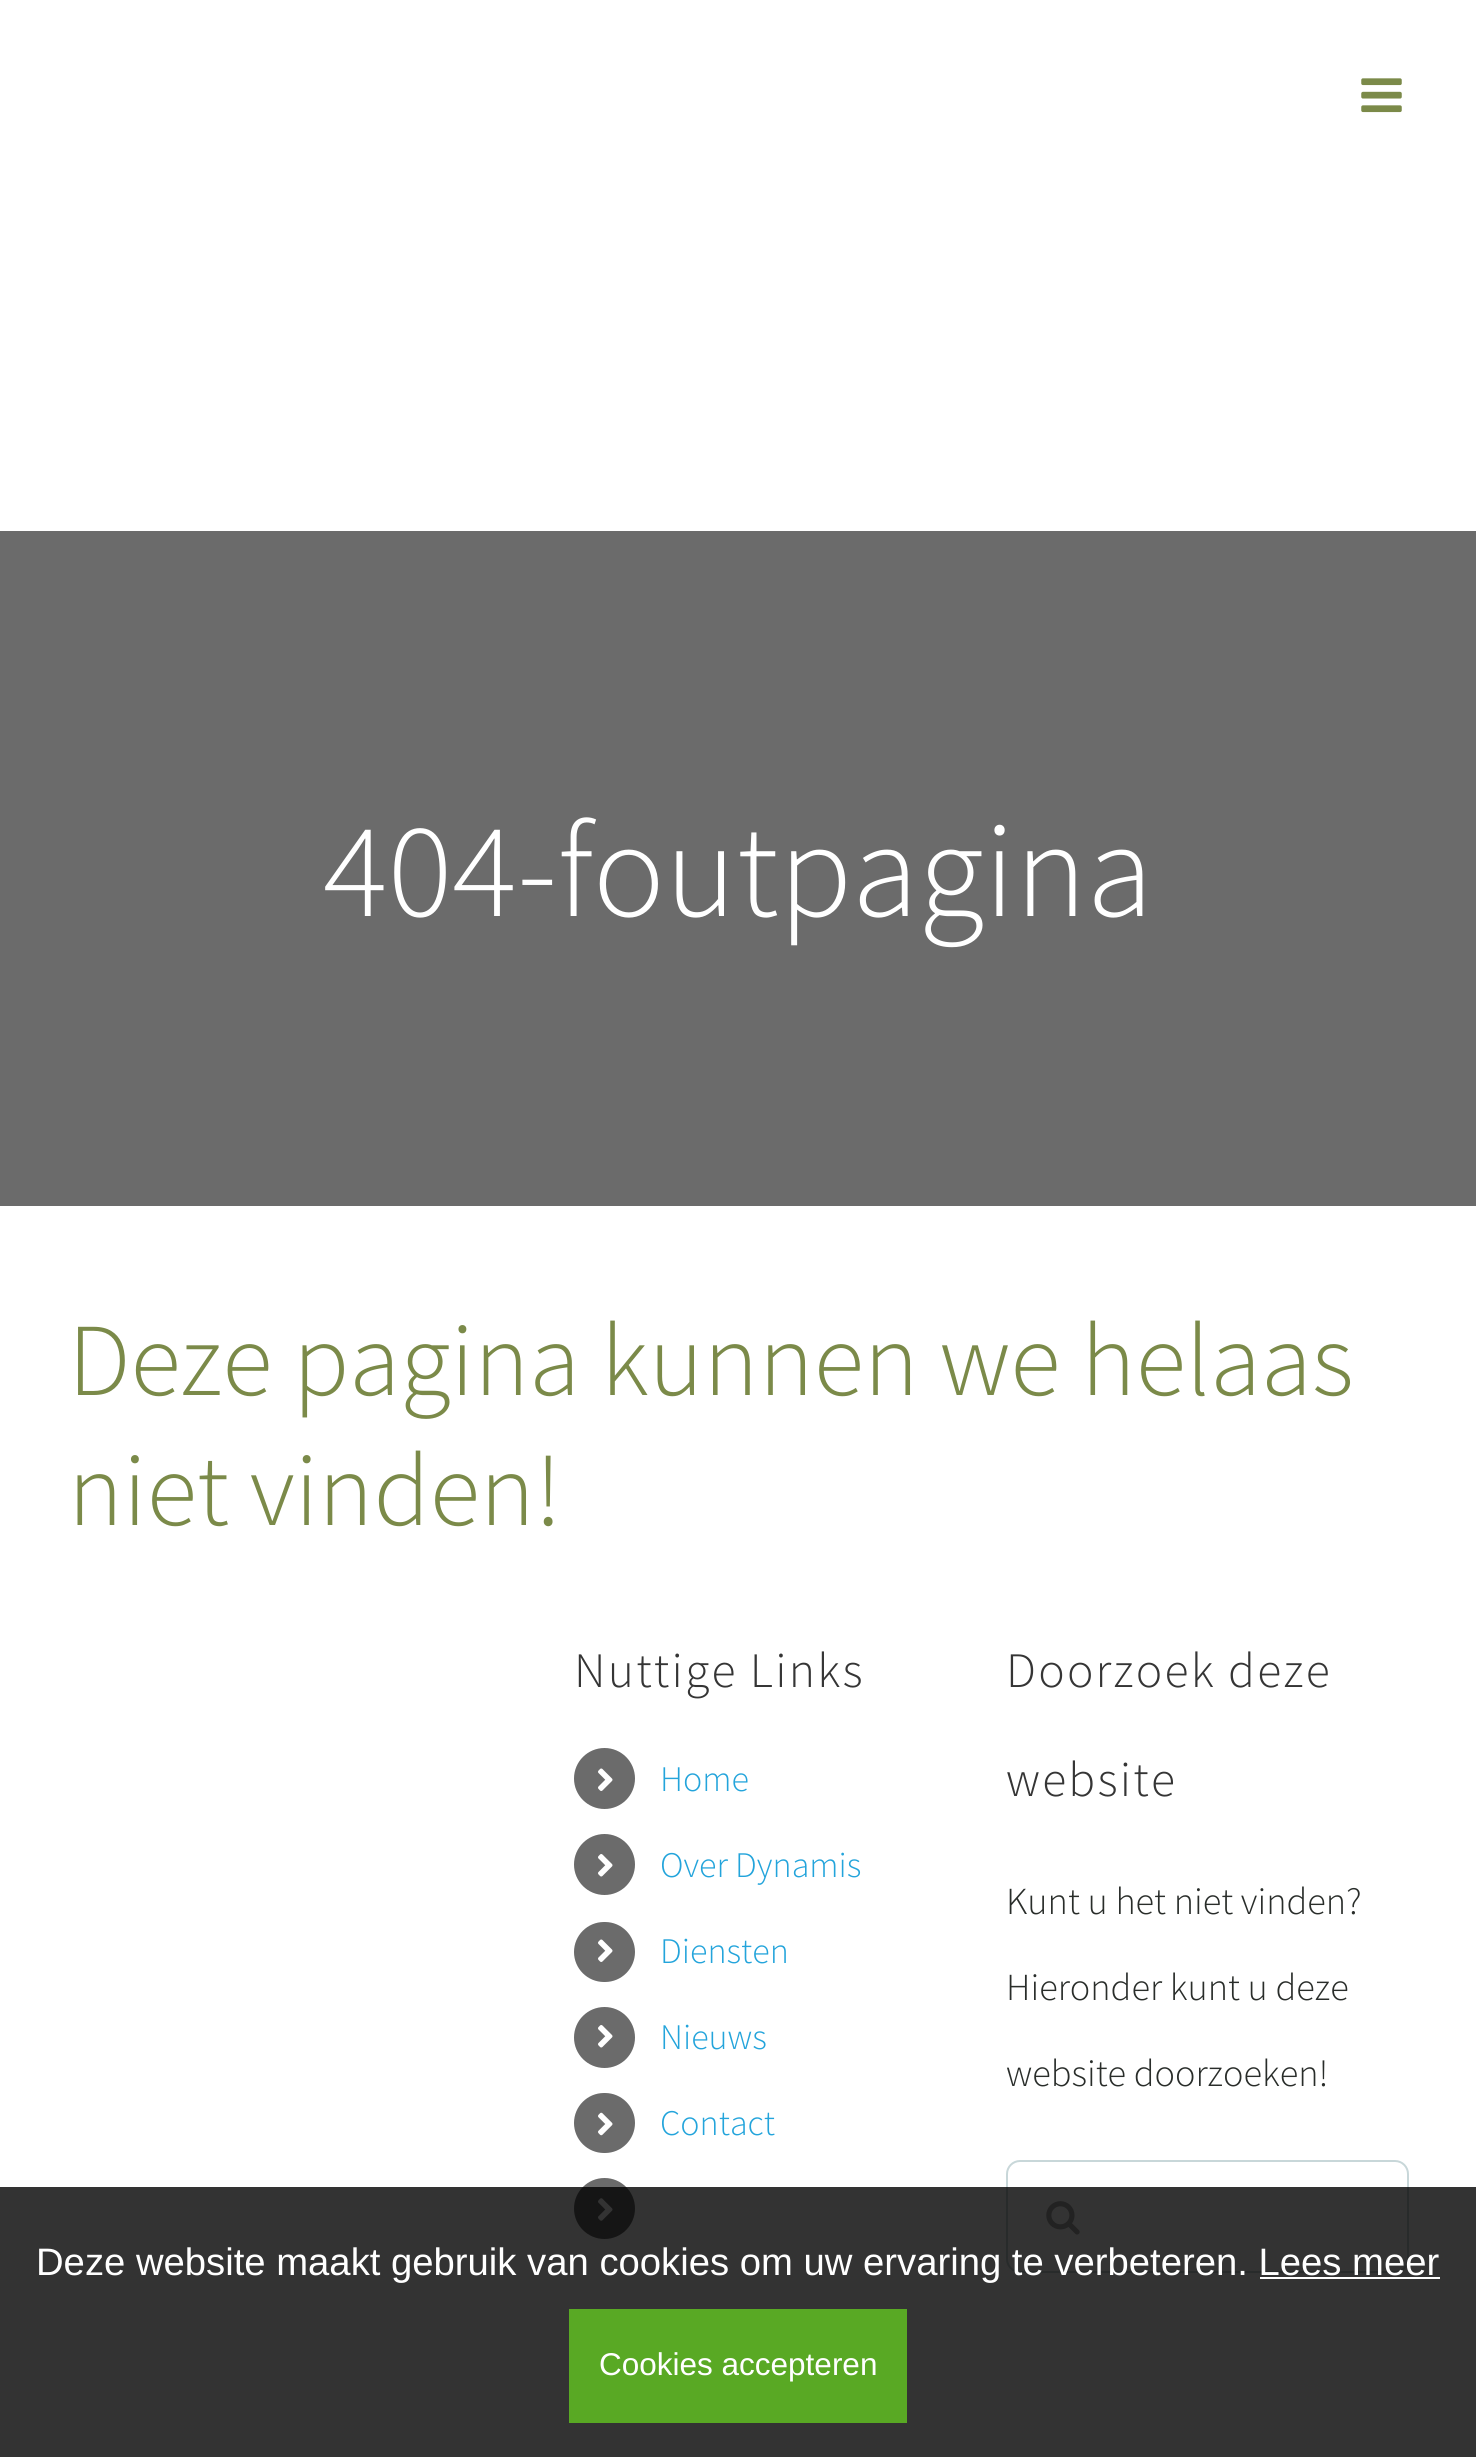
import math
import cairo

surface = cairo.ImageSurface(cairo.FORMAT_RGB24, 1476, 2457)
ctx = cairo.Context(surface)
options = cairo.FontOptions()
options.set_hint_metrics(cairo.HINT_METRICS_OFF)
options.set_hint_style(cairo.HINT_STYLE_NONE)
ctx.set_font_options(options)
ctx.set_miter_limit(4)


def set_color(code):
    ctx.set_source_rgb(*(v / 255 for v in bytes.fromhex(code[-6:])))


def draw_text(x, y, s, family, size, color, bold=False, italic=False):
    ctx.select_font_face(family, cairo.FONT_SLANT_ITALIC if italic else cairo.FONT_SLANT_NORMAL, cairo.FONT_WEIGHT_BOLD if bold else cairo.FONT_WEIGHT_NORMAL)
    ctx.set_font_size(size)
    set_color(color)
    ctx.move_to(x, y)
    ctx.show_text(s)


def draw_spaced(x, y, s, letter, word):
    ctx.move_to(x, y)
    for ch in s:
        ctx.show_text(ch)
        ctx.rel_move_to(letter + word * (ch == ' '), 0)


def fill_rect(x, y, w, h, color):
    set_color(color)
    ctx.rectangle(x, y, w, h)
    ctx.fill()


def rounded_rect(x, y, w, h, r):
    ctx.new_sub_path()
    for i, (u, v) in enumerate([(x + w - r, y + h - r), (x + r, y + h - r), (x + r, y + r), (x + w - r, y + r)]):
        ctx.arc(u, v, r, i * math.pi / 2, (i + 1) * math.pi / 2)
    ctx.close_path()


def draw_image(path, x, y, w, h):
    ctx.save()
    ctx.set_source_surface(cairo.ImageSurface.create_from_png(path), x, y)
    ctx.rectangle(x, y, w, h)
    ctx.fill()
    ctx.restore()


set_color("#ffffff")
ctx.paint()
draw_image("assets/img1.png", 1361, 78, 41, 35)
fill_rect(0, 531, 1476, 675, "#6b6b6b")
draw_text(323, 916, "404-foutpagina", "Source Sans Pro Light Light", 135, "#ffffff")
draw_text(68, 1395, "Deze pagina kunnen we helaas", "Source Sans Pro Light Light", 103.5, "#7b8a49")
draw_text(68, 1525, "niet vinden!", "Source Sans Pro Light Light", 103.5, "#7b8a49")
ctx.set_font_size(49.5)
set_color("#353535")
draw_spaced(574, 1687, "Nuttige Links", 2.25, 0)
set_color("#6b6b6b")
ctx.new_path()
ctx.arc(604.5, 1778.5, 30.5, 0, 2 * math.pi)
ctx.fill()
draw_image("assets/img2.png", 598, 1768, 15, 23)
draw_text(660, 1791, "Home", "Source Sans Pro Light Light", 36, "#23a4db")
set_color("#6b6b6b")
ctx.new_path()
ctx.arc(604.5, 1864.5, 30.5, 0, 2 * math.pi)
ctx.fill()
draw_image("assets/img3.png", 598, 1854, 15, 23)
draw_text(660, 1877, "Over Dynamis", "Source Sans Pro Light Light", 36, "#23a4db")
set_color("#6b6b6b")
rounded_rect(574, 1922, 61, 60, 30)
ctx.fill()
draw_image("assets/img2.png", 598, 1939, 15, 23)
draw_text(660, 1963, "Diensten", "Source Sans Pro Light Light", 36, "#23a4db")
set_color("#6b6b6b")
ctx.new_path()
ctx.arc(604.5, 2037.5, 30.5, 0, 2 * math.pi)
ctx.fill()
draw_image("assets/img3.png", 598, 2025, 15, 23)
draw_text(660, 2049, "Nieuws", "Source Sans Pro Light Light", 36, "#23a4db")
set_color("#6b6b6b")
rounded_rect(574, 2093, 61, 60, 30)
ctx.fill()
draw_image("assets/img4.png", 598, 2112, 15, 24)
draw_text(660, 2135, "Contact", "Source Sans Pro Light Light", 36, "#23a4db")
set_color("#6b6b6b")
ctx.new_path()
ctx.arc(604.5, 2208.5, 30.5, 0, 2 * math.pi)
ctx.fill()
draw_image("assets/img5.png", 598, 2198, 15, 23)
ctx.set_font_size(49.5)
set_color("#353535")
draw_spaced(1006, 1687, "Doorzoek deze", 2.25, 0)
draw_spaced(1006, 1796, "website", 2.25, 0)
draw_text(1006, 1914, "Kunt u het niet vinden?", "Source Sans Pro Light Light", 38.25, "#292d2a")
draw_text(1006, 2000, "Hieronder kunt u deze", "Source Sans Pro Light Light", 38.25, "#292d2a")
draw_text(1006, 2086, "website doorzoeken!", "Source Sans Pro Light Light", 38.25, "#292d2a")
rounded_rect(1007, 2161, 401, 111, 13)
set_color("#c8d7d9")
ctx.stroke()
draw_image("assets/img6.png", 1046, 2201, 34, 34)
ctx.set_source_rgba(0, 0, 0, 0.8)
ctx.rectangle(0, 2187, 1476, 270)
ctx.fill()
draw_text(36, 2275, "Deze website maakt gebruik van cookies om uw ervaring te verbeteren. Lees meer", "Liberation Sans", 38.25, "#ffffff")
fill_rect(1260, 2277, 180, 2, "#ffffff")
fill_rect(569, 2309, 338, 114, "#59a924")
draw_text(599, 2375, "Cookies accepteren", "Liberation Sans", 31.5, "#ffffff")
surface.write_to_png("output.png")
